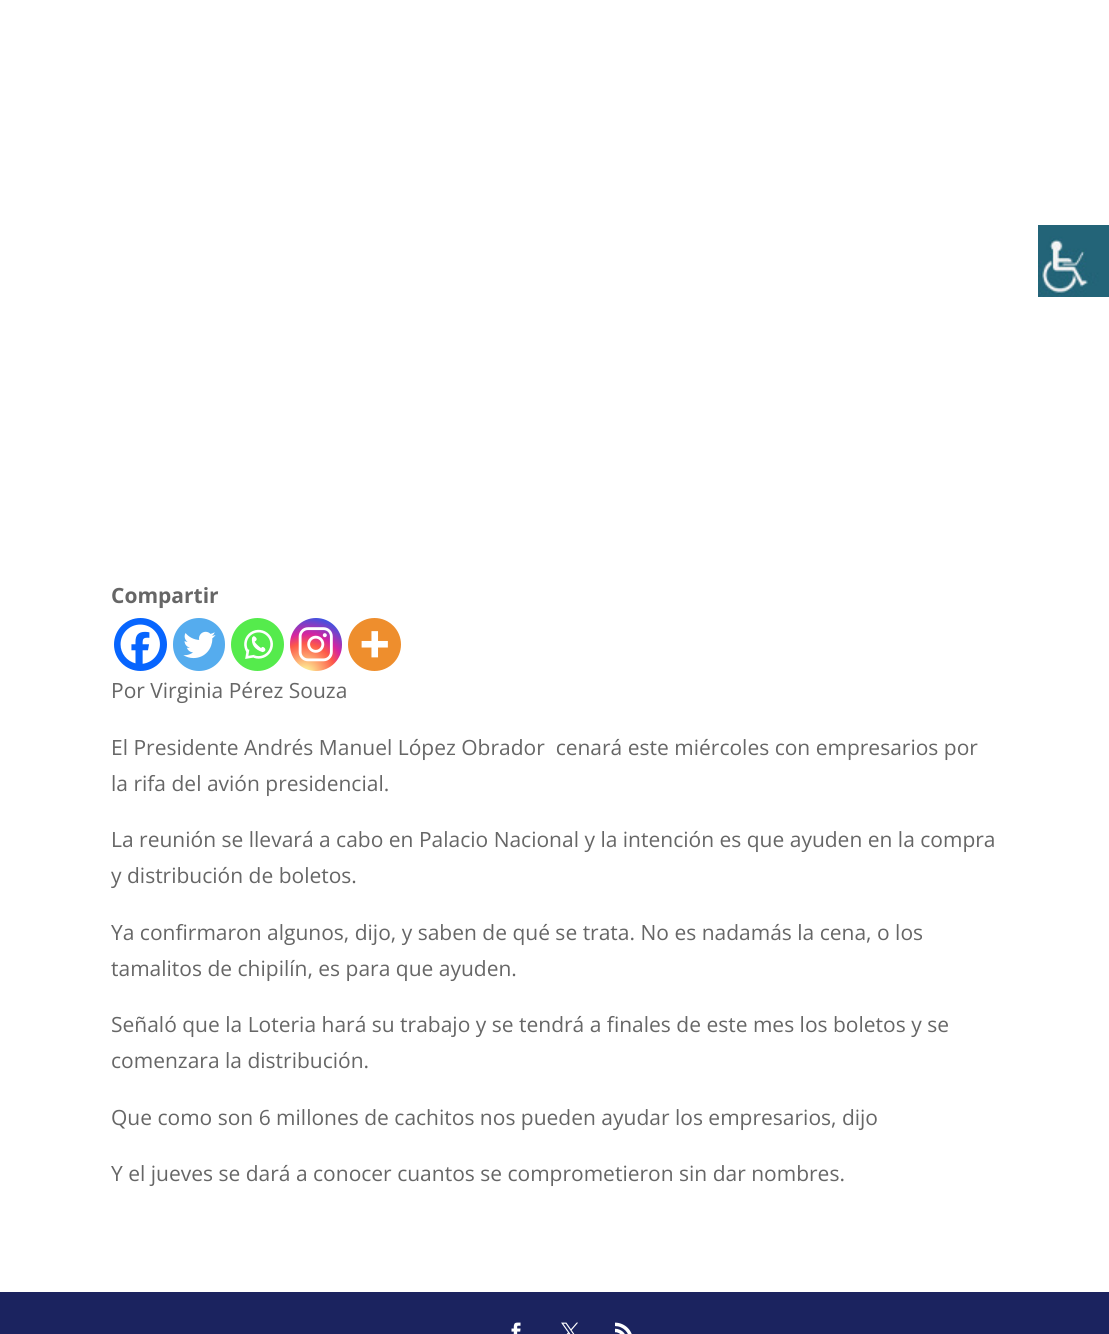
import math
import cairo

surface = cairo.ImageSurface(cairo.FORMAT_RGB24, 1109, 1334)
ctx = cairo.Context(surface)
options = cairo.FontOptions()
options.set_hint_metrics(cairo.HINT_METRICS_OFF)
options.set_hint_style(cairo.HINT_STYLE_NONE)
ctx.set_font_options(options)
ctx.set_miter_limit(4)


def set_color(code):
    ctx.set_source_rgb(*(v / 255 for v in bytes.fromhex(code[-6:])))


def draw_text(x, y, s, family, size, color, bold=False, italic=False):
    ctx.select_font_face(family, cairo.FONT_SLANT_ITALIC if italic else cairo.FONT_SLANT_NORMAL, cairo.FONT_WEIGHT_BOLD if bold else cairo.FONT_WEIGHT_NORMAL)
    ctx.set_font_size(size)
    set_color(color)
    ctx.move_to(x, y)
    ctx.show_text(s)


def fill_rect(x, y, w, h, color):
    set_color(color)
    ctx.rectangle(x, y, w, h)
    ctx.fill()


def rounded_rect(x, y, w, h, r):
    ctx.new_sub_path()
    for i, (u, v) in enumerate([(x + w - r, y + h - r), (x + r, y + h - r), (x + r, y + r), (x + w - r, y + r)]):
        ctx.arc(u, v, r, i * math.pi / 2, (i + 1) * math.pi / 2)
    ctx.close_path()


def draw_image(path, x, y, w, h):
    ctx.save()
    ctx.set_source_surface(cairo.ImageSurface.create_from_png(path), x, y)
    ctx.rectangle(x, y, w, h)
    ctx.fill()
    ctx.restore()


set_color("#ffffff")
ctx.paint()
draw_image("assets/img1.png", 1038, 225, 71, 72)
draw_text(111, 603, "Compartir", "Open Sans", 21, "#666666", bold=True)
set_color("#0765fe")
ctx.new_path()
ctx.arc(140.5, 644.5, 26.5, 0, 2 * math.pi)
ctx.fill()
draw_image("assets/img2.png", 120, 624, 40, 40)
set_color("#55acee")
rounded_rect(173, 618, 52, 53, 26)
ctx.fill()
draw_image("assets/img3.png", 183, 631, 33, 28)
set_color("#55eb4c")
ctx.arc(257.5, 644.5, 26.5, 0, 2 * math.pi)
ctx.fill()
draw_image("assets/img4.png", 244, 629, 29, 30)
gradient = cairo.RadialGradient(305, 674, 0, 305, 674, 67)
gradient.add_color_stop_rgba(0, 0.992, 0.957, 0.592, 1)
gradient.add_color_stop_rgba(0.05, 0.992, 0.957, 0.592, 1)
gradient.add_color_stop_rgba(0.45, 0.992, 0.349, 0.286, 1)
gradient.add_color_stop_rgba(0.6, 0.839, 0.141, 0.624, 1)
gradient.add_color_stop_rgba(0.9, 0.157, 0.353, 0.922, 1)
ctx.set_source(gradient)
rounded_rect(290, 618, 52, 53, 26)
ctx.fill()
draw_image("assets/img5.png", 298, 627, 35, 35)
set_color("#ee8e2d")
ctx.arc(374.5, 644.5, 26.5, 0, 2 * math.pi)
ctx.fill()
draw_image("assets/img6.png", 361, 631, 27, 27)
draw_text(111, 698, "Por Virginia Pérez Souza", "Open Sans", 21, "#666666")
draw_text(111, 755, "El Presidente Andrés Manuel López Obrador  cenará este miércoles con empresarios por", "Open Sans", 21, "#666666")
draw_text(111, 791, "la rifa del avión presidencial.", "Open Sans", 21, "#666666")
draw_text(111, 847, "La reunión se llevará a cabo en Palacio Nacional y la intención es que ayuden en la compra", "Open Sans", 21, "#666666")
draw_text(111, 883, "y distribución de boletos.", "Open Sans", 21, "#666666")
draw_text(111, 940, "Ya confirmaron algunos, dijo, y saben de qué se trata. No es nadamás la cena, o los", "Open Sans", 21, "#666666")
draw_text(111, 976, "tamalitos de chipilín, es para que ayuden.", "Open Sans", 21, "#666666")
draw_text(111, 1032, "Señaló que la Loteria hará su trabajo y se tendrá a finales de este mes los boletos y se", "Open Sans", 21, "#666666")
draw_text(111, 1068, "comenzara la distribución.", "Open Sans", 21, "#666666")
draw_text(111, 1125, "Que como son 6 millones de cachitos nos pueden ayudar los empresarios, dijo", "Open Sans", 21, "#666666")
draw_text(111, 1181, "Y el jueves se dará a conocer cuantos se comprometieron sin dar nombres.", "Open Sans", 21, "#666666")
fill_rect(0, 1292, 1109, 42, "#1b235f")
draw_image("assets/img7.png", 511, 1322, 10, 12)
draw_image("assets/img8.png", 561, 1322, 17, 12)
draw_image("assets/img9.png", 615, 1322, 17, 12)
surface.write_to_png("output.png")
